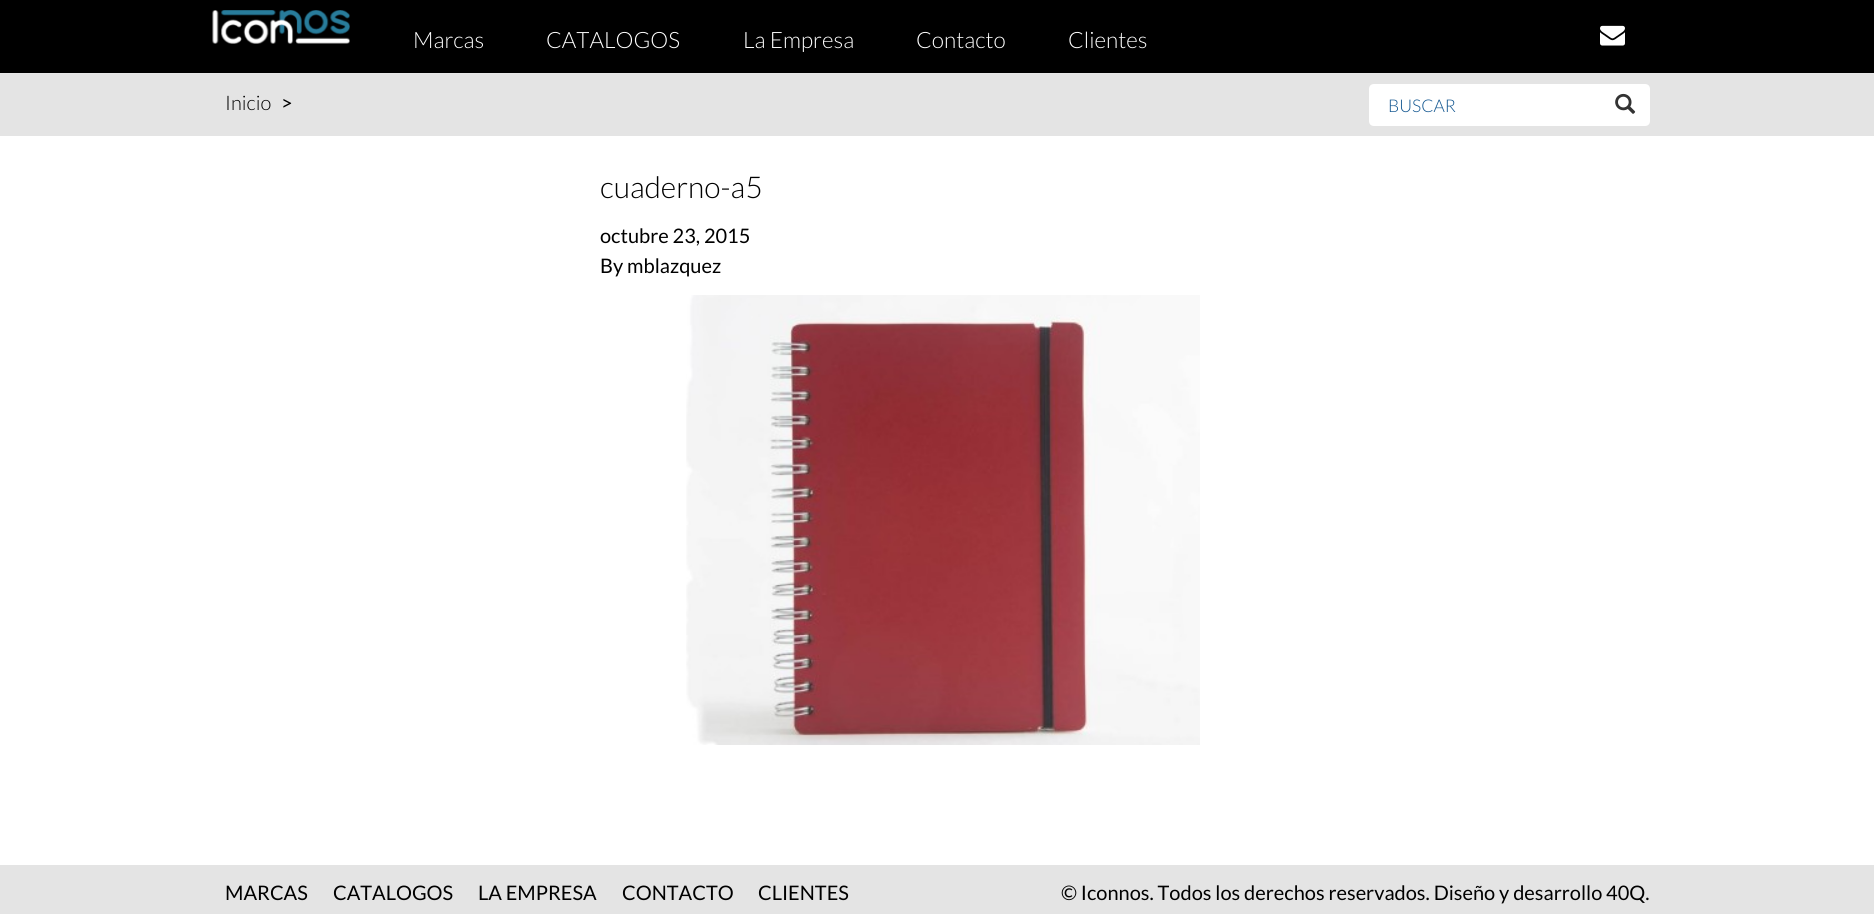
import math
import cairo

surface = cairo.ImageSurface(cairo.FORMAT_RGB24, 1874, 914)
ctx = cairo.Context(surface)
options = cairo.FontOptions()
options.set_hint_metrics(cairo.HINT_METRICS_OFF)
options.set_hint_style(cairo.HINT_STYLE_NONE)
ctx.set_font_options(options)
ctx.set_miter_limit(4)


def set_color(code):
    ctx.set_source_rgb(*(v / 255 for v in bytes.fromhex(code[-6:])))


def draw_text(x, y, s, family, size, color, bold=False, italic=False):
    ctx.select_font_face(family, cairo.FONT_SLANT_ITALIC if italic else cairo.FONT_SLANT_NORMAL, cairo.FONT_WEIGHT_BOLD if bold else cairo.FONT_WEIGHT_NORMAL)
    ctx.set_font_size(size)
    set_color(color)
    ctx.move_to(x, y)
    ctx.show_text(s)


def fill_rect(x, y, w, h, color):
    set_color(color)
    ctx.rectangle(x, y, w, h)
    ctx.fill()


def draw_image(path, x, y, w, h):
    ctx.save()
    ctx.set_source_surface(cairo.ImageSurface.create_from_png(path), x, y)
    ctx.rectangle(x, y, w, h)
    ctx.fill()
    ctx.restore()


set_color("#ffffff")
ctx.paint()
fill_rect(0, 0, 1874, 73, "#000000")
fill_rect(0, 73, 1874, 1, "#e7e7e7")
draw_image("assets/img1.png", 212, 10, 138, 34)
draw_text(413, 48, "Marcas", "Lato Light", 22.5, "#ffffff")
draw_text(546, 48, "CATALOGOS", "Lato Light", 22.5, "#ffffff")
draw_text(743, 48, "La Empresa", "Lato Light", 22.5, "#ffffff")
draw_text(916, 48, "Contacto", "Lato Light", 22.5, "#ffffff")
draw_text(1068, 48, "Clientes", "Lato Light", 22.5, "#ffffff")
draw_image("assets/img2.png", 1600, 25, 25, 21)
fill_rect(0, 74, 1874, 62, "#e4e4e4")
draw_text(225, 110, "Inicio", "Lato Light", 20, "#000000")
draw_text(281, 110, ">", "Lato", 20, "#000000")
set_color("#ffffff")
ctx.new_path()
ctx.move_to(1374, 84)
ctx.line_to(1601, 84)
ctx.line_to(1601, 126)
ctx.line_to(1374, 126)
ctx.curve_to(1371, 126, 1369, 124, 1369, 121)
ctx.line_to(1369, 89)
ctx.curve_to(1369, 86, 1371, 84, 1374, 84)
ctx.close_path()
ctx.fill()
draw_text(1388, 112, "BUSCAR", "Lato Light", 17.5, "#125690")
set_color("#ffffff")
ctx.new_path()
ctx.move_to(1600, 84)
ctx.line_to(1645, 84)
ctx.curve_to(1648, 84, 1650, 86, 1650, 89)
ctx.line_to(1650, 121)
ctx.curve_to(1650, 124, 1648, 126, 1645, 126)
ctx.line_to(1600, 126)
ctx.close_path()
ctx.fill()
draw_image("assets/img3.png", 1615, 93, 21, 21)
draw_text(600, 198, "cuaderno-a5", "Lato Light", 30, "#000000")
draw_text(600, 243, "octubre 23, 2015", "Lato", 20, "#000000")
draw_text(600, 273, "By mblazquez", "Lato", 20, "#000000")
draw_image("assets/img4.png", 686, 295, 514, 450)
fill_rect(0, 865, 1874, 49, "#e4e4e4")
draw_text(225, 900, "MARCAS", "Lato", 20, "#000000")
draw_text(333, 900, "CATALOGOS", "Lato", 20, "#000000")
draw_text(478, 900, "LA EMPRESA", "Lato", 20, "#000000")
draw_text(622, 900, "CONTACTO", "Lato", 20, "#000000")
draw_text(758, 900, "CLIENTES", "Lato", 20, "#000000")
draw_text(1061, 900, "© Iconnos. Todos los derechos reservados. Diseño y desarrollo 40Q.", "Lato", 20, "#000000")
surface.write_to_png("output.png")
